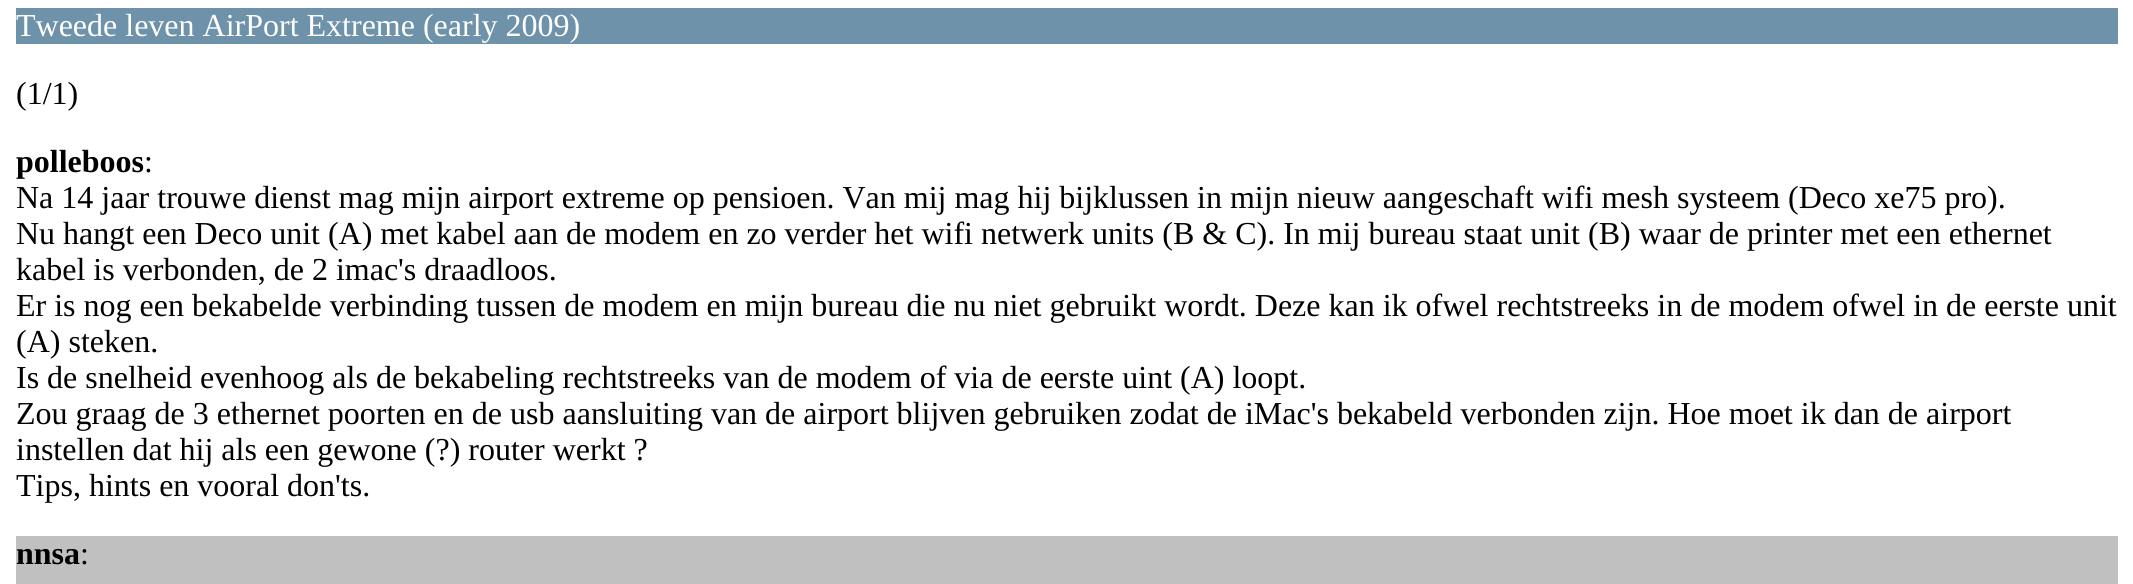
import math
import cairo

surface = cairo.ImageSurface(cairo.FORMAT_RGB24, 2133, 584)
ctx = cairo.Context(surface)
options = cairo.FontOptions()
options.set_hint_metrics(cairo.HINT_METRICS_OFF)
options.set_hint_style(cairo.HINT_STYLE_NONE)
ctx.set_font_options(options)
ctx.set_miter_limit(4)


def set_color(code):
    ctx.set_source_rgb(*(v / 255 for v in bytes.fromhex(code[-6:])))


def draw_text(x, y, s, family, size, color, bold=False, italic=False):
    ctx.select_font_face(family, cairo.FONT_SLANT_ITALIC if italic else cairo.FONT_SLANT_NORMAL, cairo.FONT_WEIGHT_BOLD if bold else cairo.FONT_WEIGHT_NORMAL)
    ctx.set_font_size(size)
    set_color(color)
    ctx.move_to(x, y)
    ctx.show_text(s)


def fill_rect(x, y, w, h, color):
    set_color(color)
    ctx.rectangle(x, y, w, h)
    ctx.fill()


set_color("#ffffff")
ctx.paint()
fill_rect(16, 8, 2102, 36, "#6d92aa")
draw_text(16, 36, "Tweede leven AirPort Extreme (early 2009)", "Liberation Serif", 32, "#ffffff")
draw_text(16, 104, "(1/1)", "Liberation Serif", 32, "#000000")
draw_text(16, 172, "polleboos", "Liberation Serif", 32, "#000000", bold=True)
draw_text(144, 172, ":", "Liberation Serif", 32, "#000000")
draw_text(16, 208, "Na 14 jaar trouwe dienst mag mijn airport extreme op pensioen. Van mij mag hij bijklussen in mijn nieuw aangeschaft wifi mesh systeem (Deco xe75 pro).", "Liberation Serif", 32, "#000000")
draw_text(16, 244, "Nu hangt een Deco unit (A) met kabel aan de modem en zo verder het wifi netwerk units (B & C). In mij bureau staat unit (B) waar de printer met een ethernet", "Liberation Serif", 32, "#000000")
draw_text(16, 280, "kabel is verbonden, de 2 imac's draadloos.", "Liberation Serif", 32, "#000000")
draw_text(16, 316, "Er is nog een bekabelde verbinding tussen de modem en mijn bureau die nu niet gebruikt wordt. Deze kan ik ofwel rechtstreeks in de modem ofwel in de eerste unit", "Liberation Serif", 32, "#000000")
draw_text(16, 352, "(A) steken.", "Liberation Serif", 32, "#000000")
draw_text(16, 388, "Is de snelheid evenhoog als de bekabeling rechtstreeks van de modem of via de eerste uint (A) loopt.", "Liberation Serif", 32, "#000000")
draw_text(16, 424, "Zou graag de 3 ethernet poorten en de usb aansluiting van de airport blijven gebruiken zodat de iMac's bekabeld verbonden zijn. Hoe moet ik dan de airport", "Liberation Serif", 32, "#000000")
draw_text(16, 460, "instellen dat hij als een gewone (?) router werkt ?", "Liberation Serif", 32, "#000000")
draw_text(16, 496, "Tips, hints en vooral don'ts.", "Liberation Serif", 32, "#000000")
fill_rect(16, 536, 2102, 48, "#c0c0c0")
draw_text(16, 564, "nnsa", "Liberation Serif", 32, "#000000", bold=True)
draw_text(80, 564, ":", "Liberation Serif", 32, "#000000")
surface.write_to_png("output.png")
